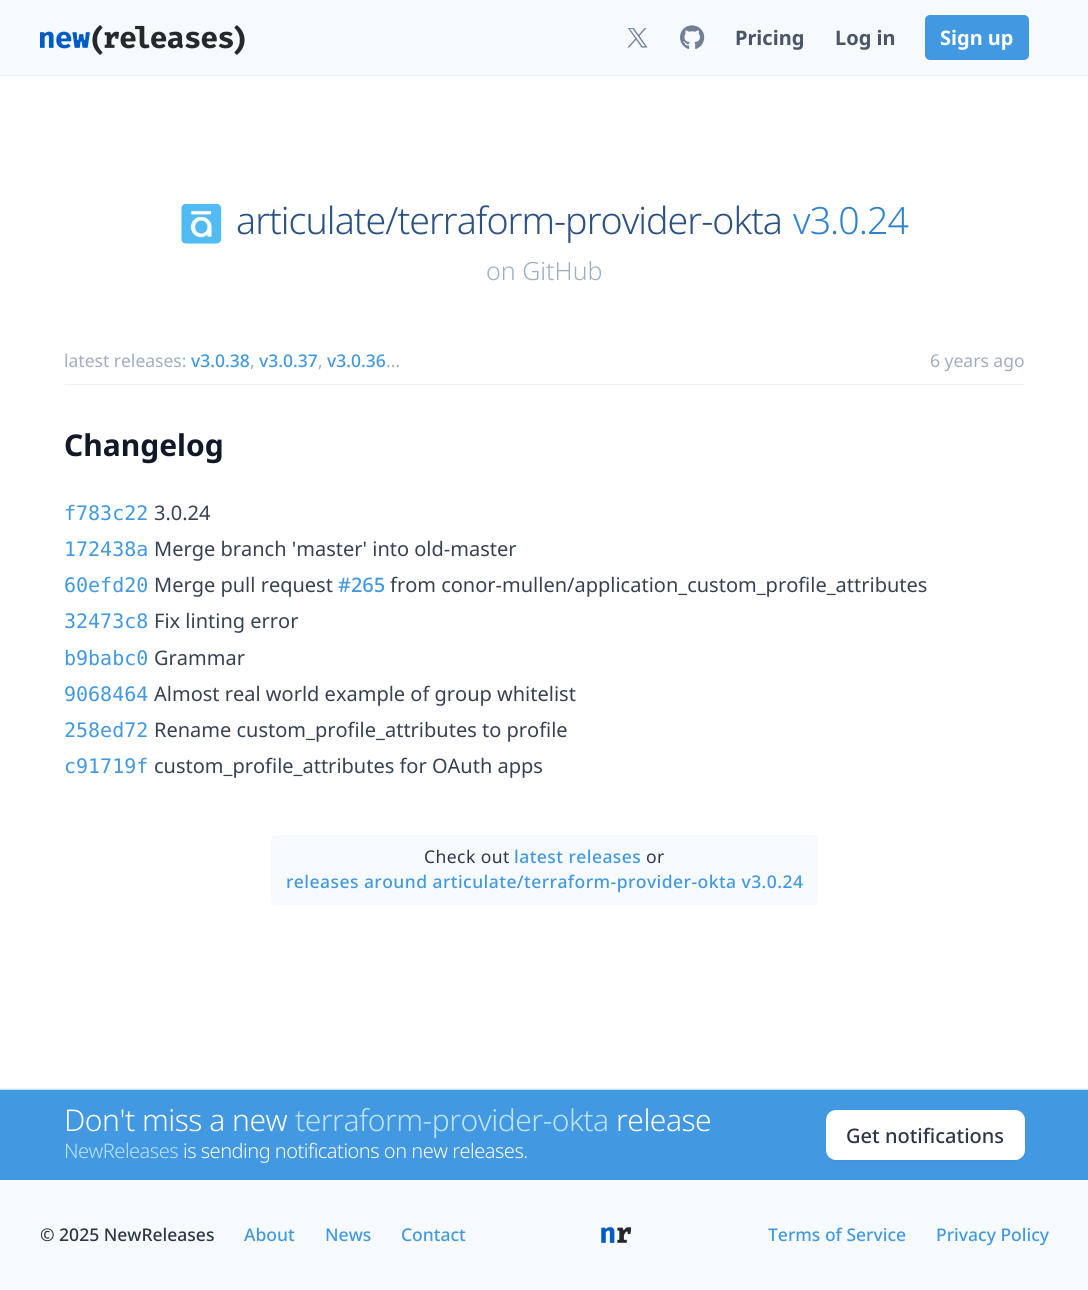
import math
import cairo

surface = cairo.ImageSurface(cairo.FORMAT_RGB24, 1088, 1290)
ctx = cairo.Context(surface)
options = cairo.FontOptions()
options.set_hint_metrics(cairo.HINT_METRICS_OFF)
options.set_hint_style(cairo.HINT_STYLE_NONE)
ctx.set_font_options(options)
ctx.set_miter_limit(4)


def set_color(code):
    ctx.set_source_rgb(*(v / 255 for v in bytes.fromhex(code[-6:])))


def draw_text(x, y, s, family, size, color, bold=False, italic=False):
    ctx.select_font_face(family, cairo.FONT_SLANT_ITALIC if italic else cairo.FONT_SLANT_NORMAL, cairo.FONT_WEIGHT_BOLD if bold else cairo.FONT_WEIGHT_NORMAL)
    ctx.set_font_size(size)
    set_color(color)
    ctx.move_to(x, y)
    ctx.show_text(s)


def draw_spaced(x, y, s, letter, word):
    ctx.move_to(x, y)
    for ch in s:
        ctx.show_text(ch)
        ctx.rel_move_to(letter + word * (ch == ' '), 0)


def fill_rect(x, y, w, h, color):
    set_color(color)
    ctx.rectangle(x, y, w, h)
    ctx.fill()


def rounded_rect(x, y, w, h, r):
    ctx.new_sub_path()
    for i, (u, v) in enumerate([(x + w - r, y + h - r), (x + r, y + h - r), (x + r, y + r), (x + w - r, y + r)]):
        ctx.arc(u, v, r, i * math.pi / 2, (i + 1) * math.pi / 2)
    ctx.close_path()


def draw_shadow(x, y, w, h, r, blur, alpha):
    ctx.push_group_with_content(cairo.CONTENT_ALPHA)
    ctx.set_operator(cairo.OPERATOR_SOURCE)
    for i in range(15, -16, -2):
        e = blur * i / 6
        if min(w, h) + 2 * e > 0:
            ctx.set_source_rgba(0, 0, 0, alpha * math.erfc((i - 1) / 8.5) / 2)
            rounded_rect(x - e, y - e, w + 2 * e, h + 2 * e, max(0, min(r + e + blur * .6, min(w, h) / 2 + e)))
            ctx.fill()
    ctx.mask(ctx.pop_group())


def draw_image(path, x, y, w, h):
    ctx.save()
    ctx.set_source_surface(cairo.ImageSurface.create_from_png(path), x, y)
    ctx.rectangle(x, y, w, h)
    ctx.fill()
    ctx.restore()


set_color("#f7fafc")
ctx.paint()
draw_image("assets/img1.png", 40, 25, 205, 30)
draw_image("assets/img2.png", 628, 28, 20, 20)
draw_image("assets/img3.png", 680, 25, 25, 24)
draw_text(735, 45, "Pricing", "Noto Sans", 20, "#4a5568", bold=True)
draw_text(835, 45, "Log in", "Noto Sans", 20, "#4a5568", bold=True)
set_color("#4299e1")
rounded_rect(925, 15, 104, 45, 5)
ctx.fill()
draw_text(940, 45, "Sign up", "Noto Sans", 20, "#ffffff", bold=True)
fill_rect(0, 76, 1088, 1012, "#ffffff")
fill_rect(0, 75, 1088, 1, "#edf2f7")
fill_rect(0, 1088, 1088, 1, "#edf2f7")
draw_image("assets/img4.png", 181, 203, 41, 41)
ctx.select_font_face("Noto Sans Light")
ctx.set_font_size(37.5)
set_color("#2c5282")
draw_spaced(236, 234, "articulate/terraform-provider-okta", -0.95, 0)
set_color("#3182ce")
draw_spaced(793, 234, "v3.0.24", -0.95, 0)
draw_text(486, 280, "on GitHub", "Noto Sans Light", 25, "#a0aec0")
fill_rect(65, 384, 960, 1, "#edf2f7")
draw_text(64, 367, "latest releases:", "Noto Sans", 17.5, "#a0aec0")
draw_text(191, 367, "v3.0.38", "Noto Sans Medium", 17.5, "#4299e1")
draw_text(250, 367, ",", "Noto Sans", 17.5, "#a0aec0")
draw_text(259, 367, "v3.0.37", "Noto Sans Medium", 17.5, "#4299e1")
draw_text(318, 367, ",", "Noto Sans", 17.5, "#a0aec0")
draw_text(327, 367, "v3.0.36", "Noto Sans Medium", 17.5, "#4299e1")
draw_text(386, 367, "...", "Noto Sans", 17.5, "#a0aec0")
draw_text(930, 367, "6 years ago", "Noto Sans", 17.5, "#a0aec0")
draw_text(64, 456, "Changelog", "Noto Sans", 30, "#111827", bold=True)
draw_text(64, 520, "f783c22", "DejaVu Sans Mono", 20, "#4299e1")
draw_text(154, 520, "3.0.24", "Noto Sans", 20, "#374151")
draw_text(64, 556, "172438a", "DejaVu Sans Mono", 20, "#4299e1")
draw_text(154, 556, "Merge branch 'master' into old-master", "Noto Sans", 20, "#374151")
draw_text(64, 592, "60efd20", "DejaVu Sans Mono", 20, "#4299e1")
draw_text(154, 592, "Merge pull request", "Noto Sans", 20, "#374151")
draw_text(338, 592, "#265", "Noto Sans Medium", 20, "#4299e1")
draw_text(390, 592, "from conor-mullen/application_custom_profile_attributes", "Noto Sans", 20, "#374151")
draw_text(64, 628, "32473c8", "DejaVu Sans Mono", 20, "#4299e1")
draw_text(154, 628, "Fix linting error", "Noto Sans", 20, "#374151")
draw_text(64, 665, "b9babc0", "DejaVu Sans Mono", 20, "#4299e1")
draw_text(154, 665, "Grammar", "Noto Sans", 20, "#374151")
draw_text(64, 701, "9068464", "DejaVu Sans Mono", 20, "#4299e1")
draw_text(154, 701, "Almost real world example of group whitelist", "Noto Sans", 20, "#374151")
draw_text(64, 737, "258ed72", "DejaVu Sans Mono", 20, "#4299e1")
draw_text(154, 737, "Rename custom_profile_attributes to profile", "Noto Sans", 20, "#374151")
draw_text(64, 773, "c91719f", "DejaVu Sans Mono", 20, "#4299e1")
draw_text(154, 773, "custom_profile_attributes for OAuth apps", "Noto Sans", 20, "#374151")
set_color("#f7fafc")
rounded_rect(271, 835, 547, 70, 5)
ctx.fill()
ctx.set_font_size(17.5)
set_color("#2d3748")
draw_spaced(424, 863, "Check out", 0.45, 0)
ctx.select_font_face("Noto Sans Medium")
set_color("#4299e1")
draw_spaced(514, 863, "latest releases", 0.45, 0)
ctx.select_font_face("Noto Sans")
set_color("#2d3748")
draw_spaced(646, 863, "or", 0.45, 0)
ctx.select_font_face("Noto Sans Medium")
set_color("#4299e1")
draw_spaced(286, 888, "releases around articulate/terraform-provider-okta v3.0.24", 0.45, 0)
fill_rect(0, 1090, 1088, 90, "#4299e1")
fill_rect(0, 1089, 1088, 1, "#bee3f8")
ctx.select_font_face("Noto Sans Light")
ctx.set_font_size(30)
set_color("#ffffff")
draw_spaced(64, 1131, "Don't miss a new", -0.5, 0)
set_color("#bee3f8")
draw_spaced(295, 1131, "terraform-provider-okta", -0.5, 0)
set_color("#ffffff")
draw_spaced(616, 1131, "release", -0.5, 0)
ctx.set_font_size(20)
set_color("#bee3f8")
draw_spaced(64, 1158, "NewReleases", -0.5, 0)
set_color("#ffffff")
draw_spaced(183, 1158, "is sending notifications on new releases.", -0.5, 0)
set_color("#000000")
draw_shadow(826, 1111, 199, 50, 10, 1, 0.05)
set_color("#ffffff")
rounded_rect(826, 1110, 199, 50, 10)
ctx.fill()
draw_text(846, 1143, "Get notifications", "Noto Sans Medium", 20, "#2d3748")
draw_text(40, 1241, "© 2025 NewReleases", "Noto Sans Medium", 17.5, "#2d3748")
draw_text(244, 1241, "About", "Noto Sans Medium", 17.5, "#4299e1")
draw_text(325, 1241, "News", "Noto Sans Medium", 17.5, "#4299e1")
draw_text(401, 1241, "Contact", "Noto Sans Medium", 17.5, "#4299e1")
draw_image("assets/img5.png", 601, 1227, 30, 16)
draw_text(768, 1241, "Terms of Service", "Noto Sans Medium", 17.5, "#4299e1")
draw_text(936, 1241, "Privacy Policy", "Noto Sans Medium", 17.5, "#4299e1")
surface.write_to_png("output.png")
